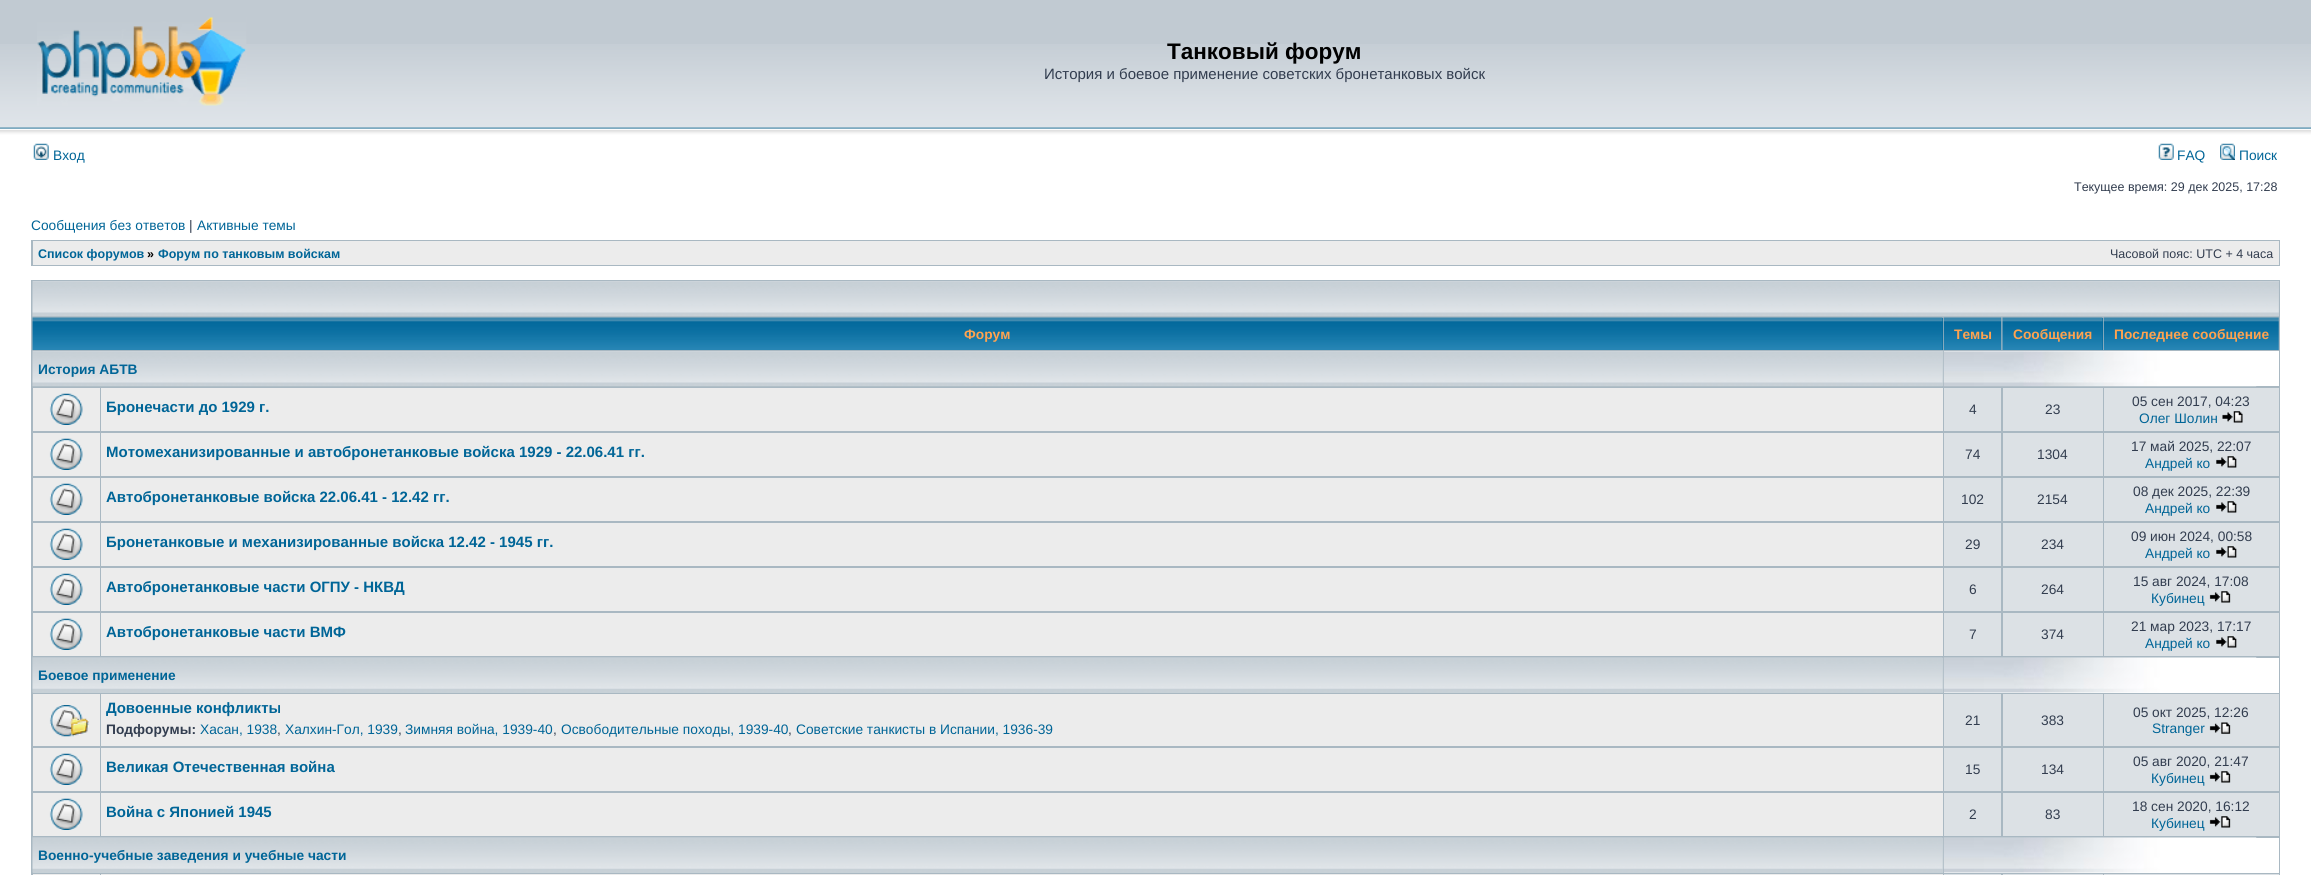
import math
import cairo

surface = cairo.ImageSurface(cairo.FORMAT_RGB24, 2311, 875)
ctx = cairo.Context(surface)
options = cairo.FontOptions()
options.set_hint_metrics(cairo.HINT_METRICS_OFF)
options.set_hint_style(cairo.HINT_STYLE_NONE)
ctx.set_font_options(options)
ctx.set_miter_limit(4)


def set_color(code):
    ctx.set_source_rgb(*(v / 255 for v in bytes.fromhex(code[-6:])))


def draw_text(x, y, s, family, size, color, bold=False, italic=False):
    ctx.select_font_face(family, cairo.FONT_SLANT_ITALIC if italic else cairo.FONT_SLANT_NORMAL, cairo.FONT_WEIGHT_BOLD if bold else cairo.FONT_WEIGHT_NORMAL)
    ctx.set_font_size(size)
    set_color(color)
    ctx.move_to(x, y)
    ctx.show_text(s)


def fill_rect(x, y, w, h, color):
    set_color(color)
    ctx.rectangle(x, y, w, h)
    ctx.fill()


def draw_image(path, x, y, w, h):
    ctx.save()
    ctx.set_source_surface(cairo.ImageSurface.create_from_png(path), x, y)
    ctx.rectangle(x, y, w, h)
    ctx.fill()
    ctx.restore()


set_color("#ffffff")
ctx.paint()
fill_rect(0, 0, 2311, 44, "#c1cad2")
draw_image("assets/img1.png", 0, 44, 2311, 97)
draw_image("assets/img2.png", 37, 17, 210, 89)
draw_text(1167, 59, "Танковый форум", "Liberation Sans", 22.5, "#000000", bold=True)
draw_text(1044, 79, "История и боевое применение советских бронетанковых войск", "Liberation Sans", 15, "#323d4f")
draw_image("assets/img3.png", 33, 143, 16, 17)
draw_text(53, 160, "Вход", "Liberation Sans", 13.75, "#006597")
draw_image("assets/img4.png", 2158, 143, 16, 17)
draw_text(2177, 160, "FAQ", "Liberation Sans", 13.75, "#006597")
draw_image("assets/img5.png", 2220, 143, 15, 17)
draw_text(2239, 160, "Поиск", "Liberation Sans", 13.75, "#006597")
draw_text(2074, 191, "Текущее время: 29 дек 2025, 17:28", "Liberation Sans", 12.5, "#323d4f")
draw_text(31, 230, "Сообщения без ответов", "Liberation Sans", 13.75, "#006597")
draw_text(189, 230, "|", "Liberation Sans", 13.75, "#323d4f")
draw_text(197, 230, "Активные темы", "Liberation Sans", 13.75, "#006597")
fill_rect(31, 240, 2249, 26, "#a9b8c2")
fill_rect(33, 241, 2246, 24, "#ececec")
draw_text(38, 258, "Список форумов", "Liberation Sans", 12.5, "#006597", bold=True)
draw_text(147, 258, "»", "Liberation Sans", 12.5, "#000000", bold=True)
draw_text(158, 258, "Форум по танковым войскам", "Liberation Sans", 12.5, "#006597", bold=True)
draw_text(2110, 258, "Часовой пояс: UTC + 4 часа", "Liberation Sans", 12.5, "#323d4f")
fill_rect(31, 280, 2249, 595, "#a9b8c2")
fill_rect(33, 281, 2246, 35, "#c7d0d7")
draw_image("assets/img6.png", 32, 281, 2247, 36)
fill_rect(1942, 318, 1, 32, "#006699")
draw_image("assets/img7.png", 32, 317, 1911, 33)
draw_text(964, 339, "Форум", "Liberation Sans", 13.75, "#ffa34f", bold=True)
draw_image("assets/img8.png", 1943, 317, 59, 33)
draw_text(1954, 339, "Темы", "Liberation Sans", 13.75, "#ffa34f", bold=True)
fill_rect(2102, 318, 1, 32, "#006699")
draw_image("assets/img9.png", 2002, 317, 101, 33)
draw_text(2013, 339, "Сообщения", "Liberation Sans", 13.75, "#ffa34f", bold=True)
draw_image("assets/img10.png", 2103, 317, 176, 33)
draw_text(2114, 339, "Последнее сообщение", "Liberation Sans", 13.75, "#ffa34f", bold=True)
fill_rect(33, 351, 1910, 35, "#c7d0d7")
draw_image("assets/img11.png", 32, 351, 1911, 36)
draw_text(38, 374, "История АБТВ", "Liberation Sans", 13.75, "#006597", bold=True)
fill_rect(1944, 351, 335, 35, "#ffffff")
draw_image("assets/img12.png", 1943, 351, 314, 36)
fill_rect(33, 388, 67, 43, "#ececec")
draw_image("assets/img13.png", 49, 393, 34, 32)
fill_rect(101, 388, 1842, 43, "#ececec")
draw_text(106, 412, "Бронечасти до 1929 г.", "Liberation Sans", 15, "#006597", bold=True)
fill_rect(1944, 388, 57, 43, "#dce1e5")
draw_text(1969, 414, "4", "Liberation Sans", 13.75, "#323d4f")
fill_rect(2003, 388, 100, 43, "#dce1e5")
draw_text(2045, 414, "23", "Liberation Sans", 13.75, "#323d4f")
fill_rect(2104, 388, 175, 43, "#dce1e5")
draw_text(2132, 406, "05 сен 2017, 04:23", "Liberation Sans", 13.75, "#323d4f")
draw_text(2139, 423, "Олег Шолин", "Liberation Sans", 13.75, "#006597")
draw_image("assets/img14.png", 2222, 411, 21, 12)
fill_rect(33, 433, 67, 43, "#ececec")
draw_image("assets/img13.png", 49, 438, 34, 32)
fill_rect(101, 433, 1842, 43, "#ececec")
draw_text(106, 457, "Мотомеханизированные и автобронетанковые войска 1929 - 22.06.41 гг.", "Liberation Sans", 15, "#006597", bold=True)
fill_rect(1944, 433, 57, 43, "#dce1e5")
draw_text(1965, 459, "74", "Liberation Sans", 13.75, "#323d4f")
fill_rect(2003, 433, 100, 43, "#dce1e5")
draw_text(2037, 459, "1304", "Liberation Sans", 13.75, "#323d4f")
fill_rect(2104, 433, 175, 43, "#dce1e5")
draw_text(2131, 451, "17 май 2025, 22:07", "Liberation Sans", 13.75, "#323d4f")
draw_text(2145, 468, "Андрей ко", "Liberation Sans", 13.75, "#006597")
draw_image("assets/img15.png", 2216, 456, 21, 12)
fill_rect(33, 478, 67, 43, "#ececec")
draw_image("assets/img13.png", 49, 483, 34, 32)
fill_rect(101, 478, 1842, 43, "#ececec")
draw_text(106, 502, "Автобронетанковые войска 22.06.41 - 12.42 гг.", "Liberation Sans", 15, "#006597", bold=True)
fill_rect(1944, 478, 57, 43, "#dce1e5")
draw_text(1961, 504, "102", "Liberation Sans", 13.75, "#323d4f")
fill_rect(2003, 478, 100, 43, "#dce1e5")
draw_text(2037, 504, "2154", "Liberation Sans", 13.75, "#323d4f")
fill_rect(2104, 478, 175, 43, "#dce1e5")
draw_text(2133, 496, "08 дек 2025, 22:39", "Liberation Sans", 13.75, "#323d4f")
draw_text(2145, 513, "Андрей ко", "Liberation Sans", 13.75, "#006597")
draw_image("assets/img15.png", 2216, 501, 21, 12)
fill_rect(33, 523, 67, 43, "#ececec")
draw_image("assets/img13.png", 49, 528, 34, 32)
fill_rect(101, 523, 1842, 43, "#ececec")
draw_text(106, 547, "Бронетанковые и механизированные войска 12.42 - 1945 гг.", "Liberation Sans", 15, "#006597", bold=True)
fill_rect(1944, 523, 57, 43, "#dce1e5")
draw_text(1965, 549, "29", "Liberation Sans", 13.75, "#323d4f")
fill_rect(2003, 523, 100, 43, "#dce1e5")
draw_text(2041, 549, "234", "Liberation Sans", 13.75, "#323d4f")
fill_rect(2104, 523, 175, 43, "#dce1e5")
draw_text(2131, 541, "09 июн 2024, 00:58", "Liberation Sans", 13.75, "#323d4f")
draw_text(2145, 558, "Андрей ко", "Liberation Sans", 13.75, "#006597")
draw_image("assets/img15.png", 2216, 546, 21, 12)
fill_rect(33, 568, 67, 43, "#ececec")
draw_image("assets/img16.png", 49, 573, 34, 32)
fill_rect(101, 568, 1842, 43, "#ececec")
draw_text(106, 592, "Автобронетанковые части ОГПУ - НКВД", "Liberation Sans", 15, "#006597", bold=True)
fill_rect(1944, 568, 57, 43, "#dce1e5")
draw_text(1969, 594, "6", "Liberation Sans", 13.75, "#323d4f")
fill_rect(2003, 568, 100, 43, "#dce1e5")
draw_text(2041, 594, "264", "Liberation Sans", 13.75, "#323d4f")
fill_rect(2104, 568, 175, 43, "#dce1e5")
draw_text(2133, 586, "15 авг 2024, 17:08", "Liberation Sans", 13.75, "#323d4f")
draw_text(2151, 603, "Кубинец", "Liberation Sans", 13.75, "#006597")
draw_image("assets/img17.png", 2209, 591, 22, 12)
fill_rect(33, 613, 67, 43, "#ececec")
draw_image("assets/img13.png", 49, 618, 34, 32)
fill_rect(101, 613, 1842, 43, "#ececec")
draw_text(106, 637, "Автобронетанковые части ВМФ", "Liberation Sans", 15, "#006597", bold=True)
fill_rect(1944, 613, 57, 43, "#dce1e5")
draw_text(1969, 639, "7", "Liberation Sans", 13.75, "#323d4f")
fill_rect(2003, 613, 100, 43, "#dce1e5")
draw_text(2041, 639, "374", "Liberation Sans", 13.75, "#323d4f")
fill_rect(2104, 613, 175, 43, "#dce1e5")
draw_text(2131, 631, "21 мар 2023, 17:17", "Liberation Sans", 13.75, "#323d4f")
draw_text(2145, 648, "Андрей ко", "Liberation Sans", 13.75, "#006597")
draw_image("assets/img15.png", 2216, 636, 21, 12)
fill_rect(33, 658, 1910, 35, "#c7d0d7")
draw_image("assets/img18.png", 32, 657, 1911, 36)
draw_text(38, 680, "Боевое применение", "Liberation Sans", 13.75, "#006597", bold=True)
fill_rect(1944, 658, 335, 35, "#ffffff")
draw_image("assets/img19.png", 1943, 657, 314, 36)
fill_rect(33, 694, 67, 52, "#ececec")
draw_image("assets/img20.png", 49, 705, 40, 32)
fill_rect(101, 694, 1842, 52, "#ececec")
draw_text(106, 713, "Довоенные конфликты", "Liberation Sans", 15, "#006597", bold=True)
draw_text(106, 734, "Подфорумы:", "Liberation Sans", 13.75, "#323d4f", bold=True)
draw_text(200, 734, "Хасан, 1938", "Liberation Sans", 13.75, "#006597")
draw_text(277, 734, ",", "Liberation Sans", 13.75, "#323d4f")
draw_text(285, 734, "Халхин-Гол, 1939", "Liberation Sans", 13.75, "#006597")
draw_text(398, 734, ",", "Liberation Sans", 13.75, "#323d4f")
draw_text(405, 734, "Зимняя война, 1939-40", "Liberation Sans", 13.75, "#006597")
draw_text(553, 734, ",", "Liberation Sans", 13.75, "#323d4f")
draw_text(561, 734, "Освободительные походы, 1939-40", "Liberation Sans", 13.75, "#006597")
draw_text(788, 734, ",", "Liberation Sans", 13.75, "#323d4f")
draw_text(796, 734, "Советские танкисты в Испании, 1936-39", "Liberation Sans", 13.75, "#006597")
fill_rect(1944, 694, 57, 52, "#dce1e5")
draw_text(1965, 725, "21", "Liberation Sans", 13.75, "#323d4f")
fill_rect(2003, 694, 100, 52, "#dce1e5")
draw_text(2041, 725, "383", "Liberation Sans", 13.75, "#323d4f")
fill_rect(2104, 694, 175, 52, "#dce1e5")
draw_text(2133, 717, "05 окт 2025, 12:26", "Liberation Sans", 13.75, "#323d4f")
draw_text(2152, 733, "Stranger", "Liberation Sans", 13.75, "#006597")
draw_image("assets/img21.png", 2209, 722, 22, 12)
fill_rect(33, 748, 67, 43, "#ececec")
draw_image("assets/img13.png", 49, 753, 34, 32)
fill_rect(101, 748, 1842, 43, "#ececec")
draw_text(106, 772, "Великая Отечественная война", "Liberation Sans", 15, "#006597", bold=True)
fill_rect(1944, 748, 57, 43, "#dce1e5")
draw_text(1965, 774, "15", "Liberation Sans", 13.75, "#323d4f")
fill_rect(2003, 748, 100, 43, "#dce1e5")
draw_text(2041, 774, "134", "Liberation Sans", 13.75, "#323d4f")
fill_rect(2104, 748, 175, 43, "#dce1e5")
draw_text(2133, 766, "05 авг 2020, 21:47", "Liberation Sans", 13.75, "#323d4f")
draw_text(2151, 783, "Кубинец", "Liberation Sans", 13.75, "#006597")
draw_image("assets/img17.png", 2209, 771, 22, 12)
fill_rect(33, 793, 67, 43, "#ececec")
draw_image("assets/img13.png", 49, 798, 34, 32)
fill_rect(101, 793, 1842, 43, "#ececec")
draw_text(106, 817, "Война с Японией 1945", "Liberation Sans", 15, "#006597", bold=True)
fill_rect(1944, 793, 57, 43, "#dce1e5")
draw_text(1969, 819, "2", "Liberation Sans", 13.75, "#323d4f")
fill_rect(2003, 793, 100, 43, "#dce1e5")
draw_text(2045, 819, "83", "Liberation Sans", 13.75, "#323d4f")
fill_rect(2104, 793, 175, 43, "#dce1e5")
draw_text(2132, 811, "18 сен 2020, 16:12", "Liberation Sans", 13.75, "#323d4f")
draw_text(2151, 828, "Кубинец", "Liberation Sans", 13.75, "#006597")
draw_image("assets/img17.png", 2209, 816, 22, 12)
fill_rect(33, 838, 1910, 35, "#c7d0d7")
draw_image("assets/img18.png", 32, 837, 1911, 36)
draw_text(38, 860, "Военно-учебные заведения и учебные части", "Liberation Sans", 13.75, "#006597", bold=True)
fill_rect(1944, 838, 335, 35, "#ffffff")
draw_image("assets/img22.png", 1943, 837, 314, 36)
fill_rect(33, 874, 67, 1, "#ececec")
fill_rect(101, 874, 1842, 1, "#ececec")
fill_rect(1944, 874, 57, 1, "#dce1e5")
fill_rect(2003, 874, 100, 1, "#dce1e5")
fill_rect(2104, 874, 175, 1, "#dce1e5")
surface.write_to_png("output.png")
